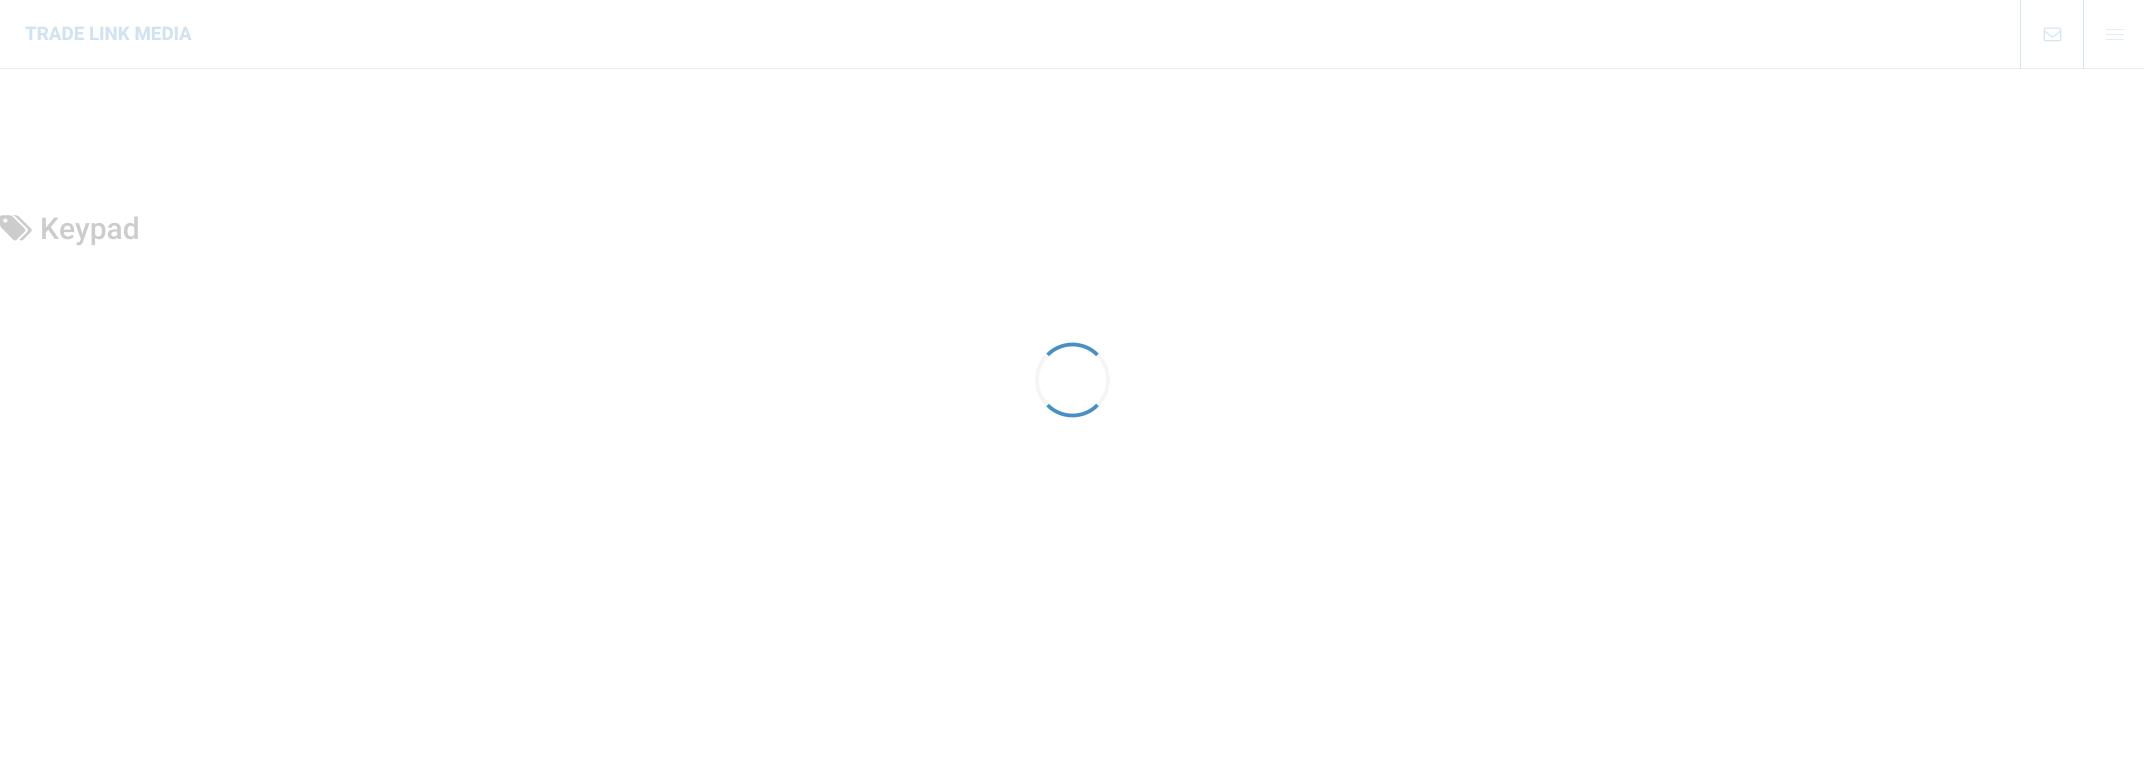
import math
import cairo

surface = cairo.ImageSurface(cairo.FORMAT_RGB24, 2144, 758)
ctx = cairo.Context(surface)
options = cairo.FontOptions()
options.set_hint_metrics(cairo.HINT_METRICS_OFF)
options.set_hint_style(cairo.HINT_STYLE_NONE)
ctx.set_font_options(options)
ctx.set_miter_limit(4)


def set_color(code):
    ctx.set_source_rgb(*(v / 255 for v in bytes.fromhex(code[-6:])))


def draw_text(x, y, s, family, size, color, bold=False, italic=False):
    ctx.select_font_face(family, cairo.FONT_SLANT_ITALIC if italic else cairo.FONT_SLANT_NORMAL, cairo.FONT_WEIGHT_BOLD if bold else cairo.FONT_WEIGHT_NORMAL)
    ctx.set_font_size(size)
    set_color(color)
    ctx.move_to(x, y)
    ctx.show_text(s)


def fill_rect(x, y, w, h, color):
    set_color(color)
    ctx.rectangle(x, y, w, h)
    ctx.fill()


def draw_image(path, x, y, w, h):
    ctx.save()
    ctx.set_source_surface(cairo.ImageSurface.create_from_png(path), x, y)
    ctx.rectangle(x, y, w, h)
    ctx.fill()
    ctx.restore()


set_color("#ffffff")
ctx.paint()
fill_rect(0, 68, 2144, 1, "#e2edf6")
draw_text(25, 40, "TRADE LINK MEDIA", "Roboto ExtraBold", 18.75, "#d1e3f0")
fill_rect(2020, 0, 1, 69, "#d4e6f1")
draw_image("assets/img1.png", 2043, 27, 19, 15)
fill_rect(2083, 0, 1, 69, "#d4e6f1")
fill_rect(2106, 29, 18, 1, "#e2edf6")
fill_rect(2106, 34, 18, 1, "#e2edf6")
fill_rect(2106, 39, 18, 1, "#e2edf6")
draw_image("assets/img2.png", 0, 215, 32, 26)
draw_text(40, 239, "Keypad", "Roboto Medium", 30, "#cccccc")
ctx.new_path()
ctx.move_to(1047.5, 355)
ctx.curve_to(1061, 341, 1084, 341, 1097.5, 355)
set_color("#488fc4")
ctx.set_line_width(3.8)
ctx.stroke()
ctx.new_path()
ctx.move_to(1097.5, 355)
ctx.curve_to(1111.5, 368.5, 1111.5, 391.5, 1097.5, 405)
set_color("#f5f5f5")
ctx.stroke()
ctx.new_path()
ctx.move_to(1097.5, 405)
ctx.curve_to(1084, 419, 1061, 419, 1047.5, 405)
set_color("#488fc4")
ctx.stroke()
ctx.new_path()
ctx.move_to(1047.5, 405)
ctx.curve_to(1033.5, 391.5, 1033.5, 368.5, 1047.5, 355)
set_color("#f5f5f5")
ctx.stroke()
surface.write_to_png("output.png")
